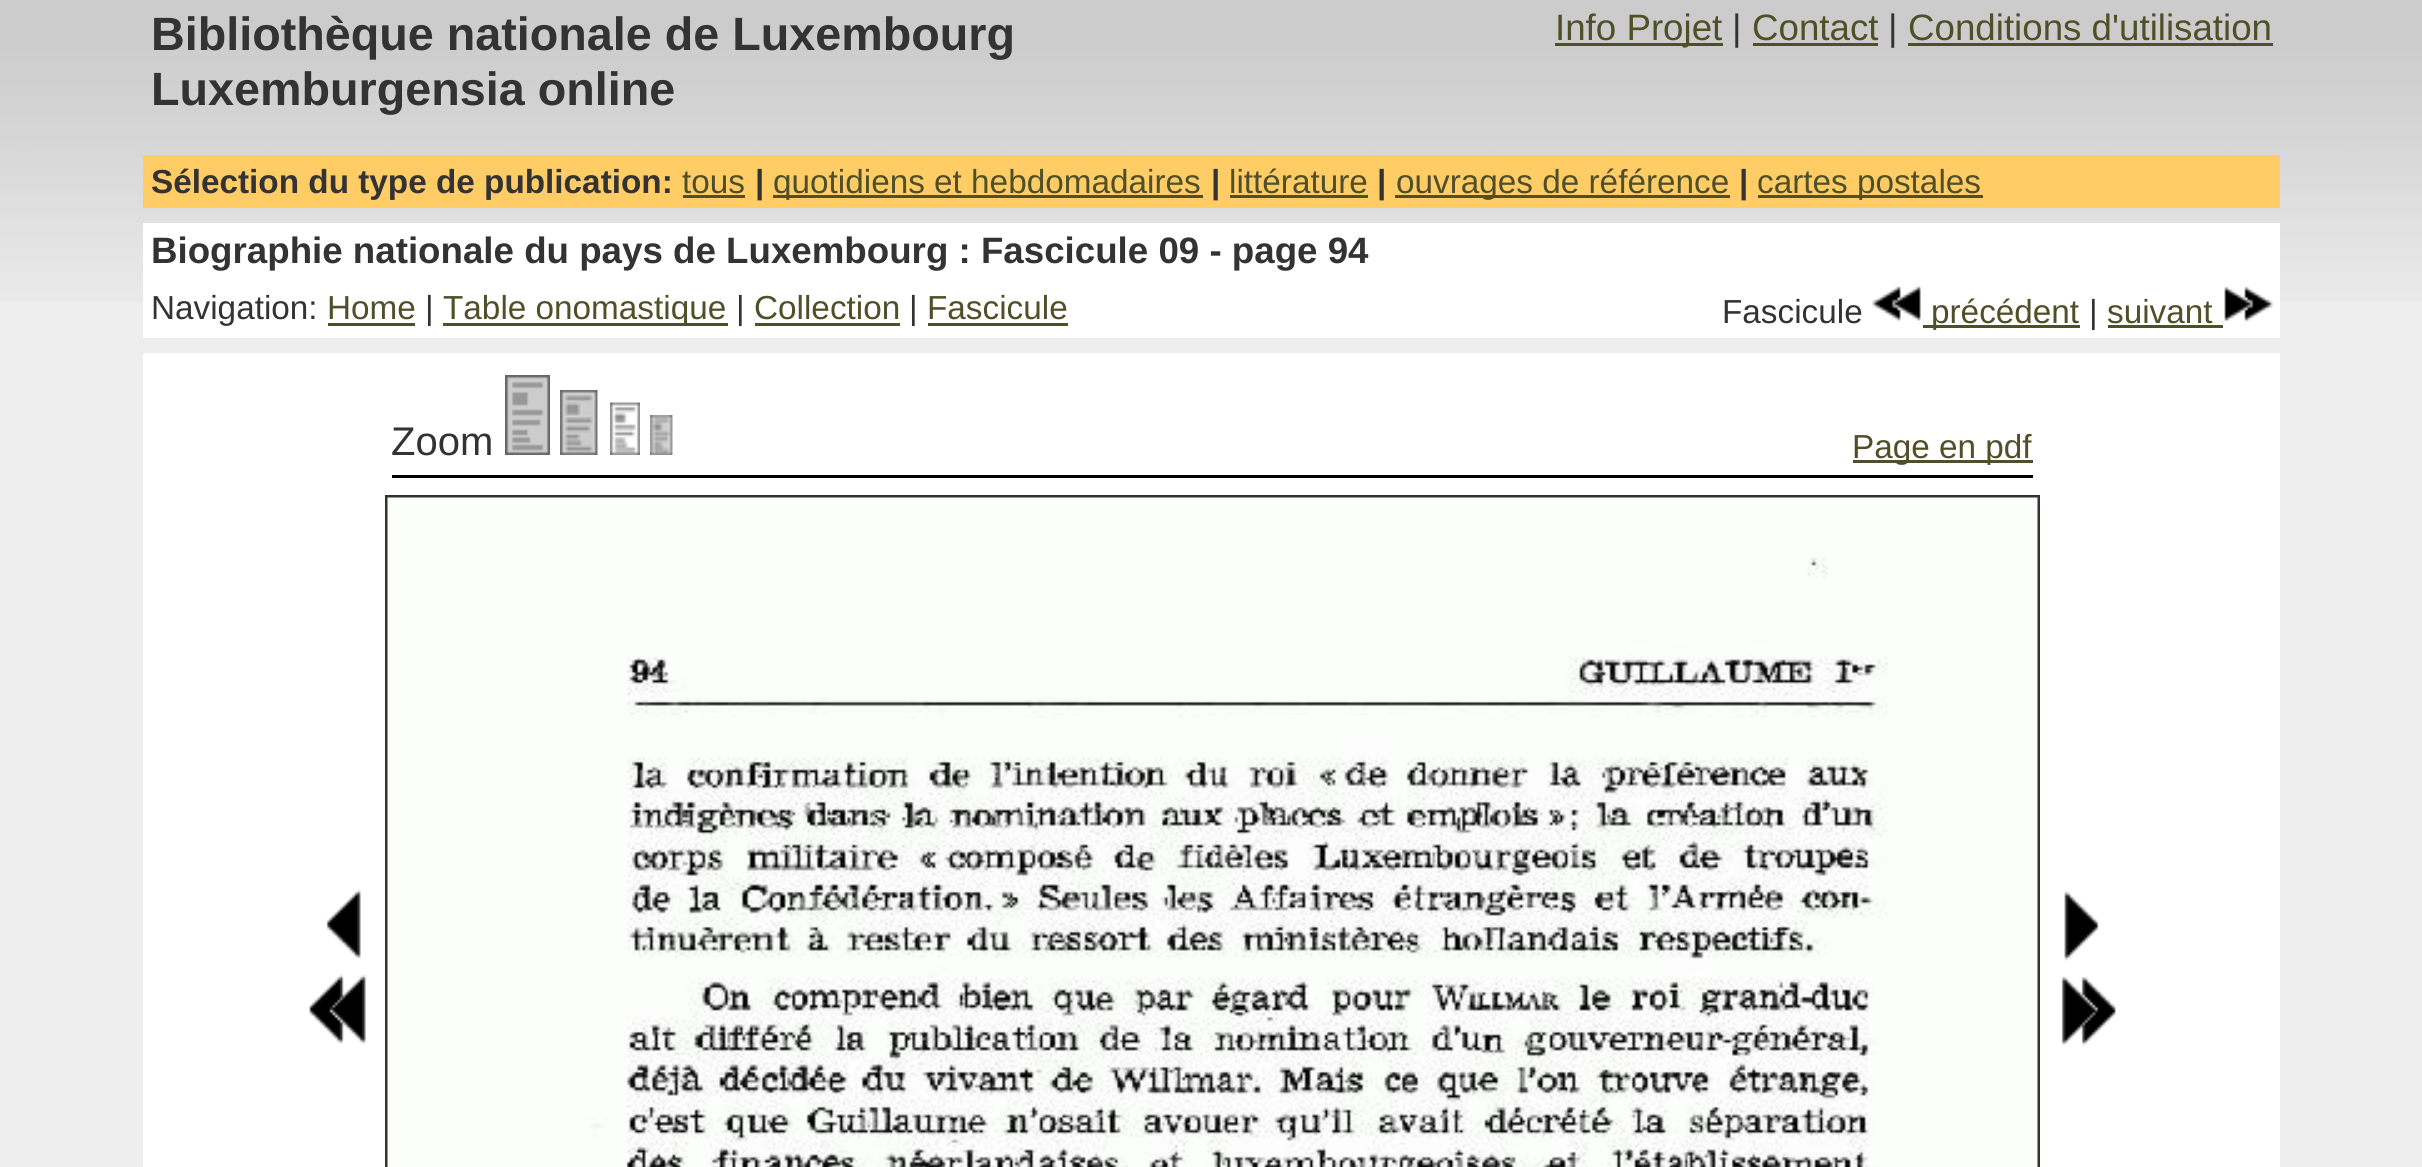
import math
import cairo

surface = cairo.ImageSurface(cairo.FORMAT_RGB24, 2422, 1167)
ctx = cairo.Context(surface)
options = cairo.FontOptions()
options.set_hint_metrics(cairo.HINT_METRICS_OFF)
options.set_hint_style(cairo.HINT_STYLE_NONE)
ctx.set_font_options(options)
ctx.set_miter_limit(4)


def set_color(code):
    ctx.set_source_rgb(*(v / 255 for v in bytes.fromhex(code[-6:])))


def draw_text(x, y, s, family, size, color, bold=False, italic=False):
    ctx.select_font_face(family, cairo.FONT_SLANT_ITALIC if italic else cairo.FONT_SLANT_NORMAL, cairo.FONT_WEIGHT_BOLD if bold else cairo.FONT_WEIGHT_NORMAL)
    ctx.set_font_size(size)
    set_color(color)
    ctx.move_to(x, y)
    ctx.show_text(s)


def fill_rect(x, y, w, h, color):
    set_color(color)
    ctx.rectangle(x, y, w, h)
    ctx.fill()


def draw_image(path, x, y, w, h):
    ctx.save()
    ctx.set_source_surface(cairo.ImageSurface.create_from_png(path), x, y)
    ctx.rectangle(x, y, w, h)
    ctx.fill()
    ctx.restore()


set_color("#eeeeee")
ctx.paint()
draw_image("assets/img1.png", 0, 0, 2422, 302)
draw_image("assets/img2.png", 143, 0, 2137, 155)
draw_text(151, 50, "Bibliothèque nationale de Luxembourg", "Liberation Sans", 46.7, "#333333", bold=True)
draw_text(151, 105, "Luxemburgensia online", "Liberation Sans", 46.7, "#333333", bold=True)
fill_rect(1555, 43, 168, 3, "#4f4f28")
draw_text(1555, 40, "Info Projet", "Liberation Sans", 36.7, "#4f4f28")
draw_text(1732, 40, "|", "Liberation Sans", 36.7, "#333333")
draw_text(1752, 40, "Contact", "Liberation Sans", 36.7, "#4f4f28")
fill_rect(1753, 43, 125, 3, "#4f4f28")
draw_text(1888, 40, "|", "Liberation Sans", 36.7, "#333333")
draw_text(1908, 40, "Conditions d'utilisation", "Liberation Sans", 36.7, "#4f4f28")
fill_rect(1908, 43, 365, 3, "#4f4f28")
fill_rect(143, 155, 2137, 53, "#ffcc66")
draw_text(151, 193, "Sélection du type de publication:", "Liberation Sans", 33.3, "#333333", bold=True)
draw_text(682, 193, "tous", "Liberation Sans", 33.3, "#4f4f28")
fill_rect(683, 195, 62, 3, "#4f4f28")
draw_text(755, 193, "|", "Liberation Sans", 33.3, "#333333", bold=True)
fill_rect(773, 195, 430, 3, "#4f4f28")
draw_text(773, 193, "quotidiens et hebdomadaires", "Liberation Sans", 33.3, "#4f4f28")
draw_text(1211, 193, "|", "Liberation Sans", 33.3, "#333333", bold=True)
draw_text(1229, 193, "littérature", "Liberation Sans", 33.3, "#4f4f28")
fill_rect(1230, 195, 138, 3, "#4f4f28")
draw_text(1377, 193, "|", "Liberation Sans", 33.3, "#333333", bold=True)
fill_rect(1395, 195, 335, 3, "#4f4f28")
draw_text(1396, 193, "ouvrages de référence", "Liberation Sans", 33.3, "#4f4f28")
draw_text(1739, 193, "|", "Liberation Sans", 33.3, "#333333", bold=True)
fill_rect(1758, 195, 225, 3, "#4f4f28")
draw_text(1757, 193, "cartes postales", "Liberation Sans", 33.3, "#4f4f28")
fill_rect(143, 223, 2137, 115, "#ffffff")
draw_text(151, 263, "Biographie nationale du pays de Luxembourg : Fascicule 09 - page 94", "Liberation Sans", 36.7, "#333333", bold=True)
draw_text(151, 319, "Navigation:", "Liberation Sans", 33.3, "#333333")
draw_text(327, 319, "Home", "Liberation Sans", 33.3, "#4f4f28")
fill_rect(328, 323, 87, 3, "#4f4f28")
draw_text(425, 319, "|", "Liberation Sans", 33.3, "#333333")
fill_rect(443, 323, 285, 3, "#4f4f28")
draw_text(443, 319, "Table onomastique", "Liberation Sans", 33.3, "#4f4f28")
draw_text(736, 319, "|", "Liberation Sans", 33.3, "#333333")
draw_text(754, 319, "Collection", "Liberation Sans", 33.3, "#4f4f28")
fill_rect(755, 323, 145, 3, "#4f4f28")
draw_text(909, 319, "|", "Liberation Sans", 33.3, "#333333")
draw_text(927, 319, "Fascicule", "Liberation Sans", 33.3, "#4f4f28")
fill_rect(928, 323, 140, 3, "#4f4f28")
draw_text(1722, 323, "Fascicule", "Liberation Sans", 33.3, "#333333")
draw_image("assets/img3.png", 1872, 285, 49, 36)
fill_rect(1923, 325, 157, 3, "#4f4f28")
draw_text(1931, 323, "précédent", "Liberation Sans", 33.3, "#4f4f28")
draw_text(2089, 323, "|", "Liberation Sans", 33.3, "#333333")
draw_text(2107, 323, "suivant", "Liberation Sans", 33.3, "#4f4f28")
fill_rect(2108, 325, 115, 3, "#4f4f28")
draw_image("assets/img4.png", 2224, 286, 49, 37)
fill_rect(143, 353, 2137, 814, "#ffffff")
draw_text(391, 455, "Zoom", "Liberation Sans", 40, "#333333")
draw_image("assets/img5.png", 505, 375, 45, 80)
draw_image("assets/img6.png", 560, 390, 38, 65)
draw_image("assets/img7.png", 610, 402, 30, 53)
draw_image("assets/img8.png", 650, 415, 23, 40)
fill_rect(1853, 460, 180, 3, "#4f4f28")
draw_text(1852, 458, "Page en pdf", "Liberation Sans", 33.3, "#4f4f28")
fill_rect(392, 475, 1641, 3, "#000000")
draw_image("assets/img9.png", 326, 889, 35, 70)
draw_image("assets/img10.png", 309, 974, 57, 70)
ctx.rectangle(386.5, 496.5, 1652, 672)
set_color("#333333")
ctx.set_line_width(3)
ctx.stroke()
draw_image("assets/img11.png", 387, 497, 1651, 670)
draw_image("assets/img12.png", 2064, 891, 35, 70)
draw_image("assets/img13.png", 2061, 976, 55, 70)
surface.write_to_png("output.png")
